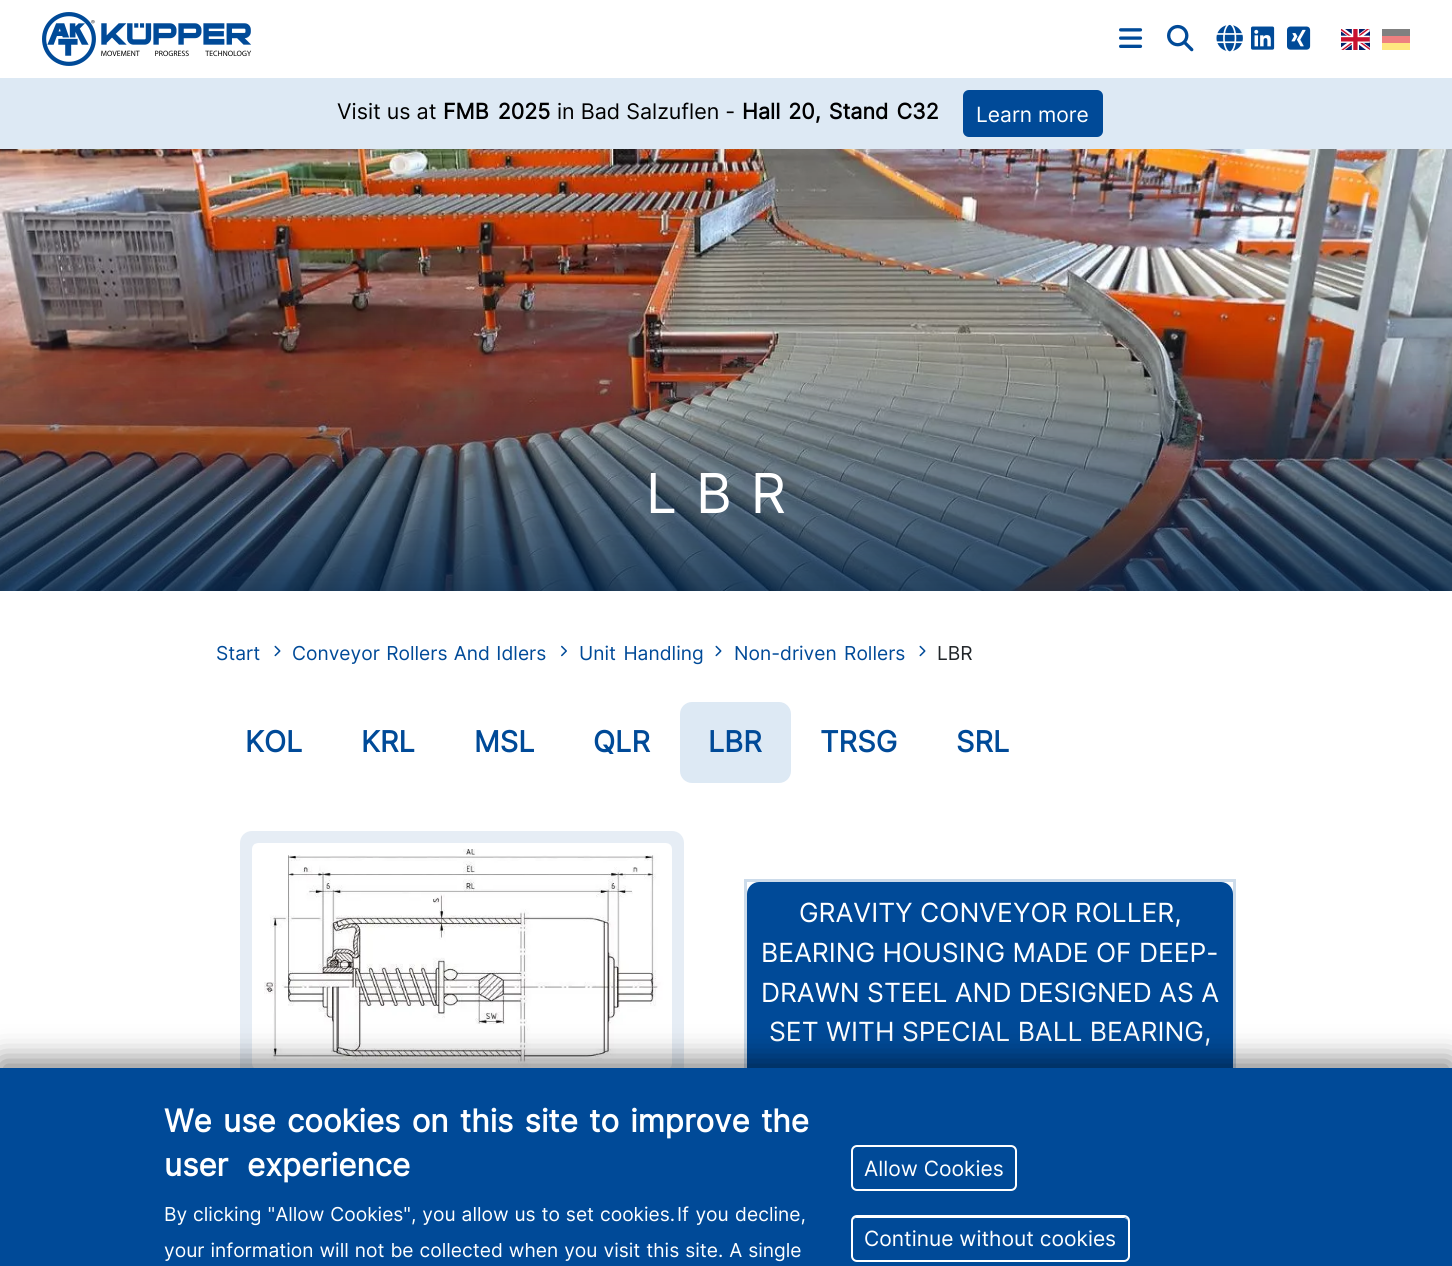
import math
import cairo

surface = cairo.ImageSurface(cairo.FORMAT_RGB24, 1452, 1266)
ctx = cairo.Context(surface)
options = cairo.FontOptions()
options.set_hint_metrics(cairo.HINT_METRICS_OFF)
options.set_hint_style(cairo.HINT_STYLE_NONE)
ctx.set_font_options(options)
ctx.set_miter_limit(4)


def set_color(code):
    ctx.set_source_rgb(*(v / 255 for v in bytes.fromhex(code[-6:])))


def draw_text(x, y, s, family, size, color, bold=False, italic=False):
    ctx.select_font_face(family, cairo.FONT_SLANT_ITALIC if italic else cairo.FONT_SLANT_NORMAL, cairo.FONT_WEIGHT_BOLD if bold else cairo.FONT_WEIGHT_NORMAL)
    ctx.set_font_size(size)
    set_color(color)
    ctx.move_to(x, y)
    ctx.show_text(s)


def draw_spaced(x, y, s, letter, word):
    ctx.move_to(x, y)
    for ch in s:
        ctx.show_text(ch)
        ctx.rel_move_to(letter + word * (ch == ' '), 0)


def fill_rect(x, y, w, h, color):
    set_color(color)
    ctx.rectangle(x, y, w, h)
    ctx.fill()


def rounded_rect(x, y, w, h, r):
    ctx.new_sub_path()
    for i, (u, v) in enumerate([(x + w - r, y + h - r), (x + r, y + h - r), (x + r, y + r), (x + w - r, y + r)]):
        ctx.arc(u, v, r, i * math.pi / 2, (i + 1) * math.pi / 2)
    ctx.close_path()


def draw_shadow(x, y, w, h, r, blur, alpha):
    ctx.push_group_with_content(cairo.CONTENT_ALPHA)
    ctx.set_operator(cairo.OPERATOR_SOURCE)
    for i in range(15, -16, -2):
        e = blur * i / 6
        if min(w, h) + 2 * e > 0:
            ctx.set_source_rgba(0, 0, 0, alpha * math.erfc((i - 1) / 8.5) / 2)
            rounded_rect(x - e, y - e, w + 2 * e, h + 2 * e, max(0, min(r + e + blur * .6, min(w, h) / 2 + e)))
            ctx.fill()
    ctx.mask(ctx.pop_group())


def draw_image(path, x, y, w, h):
    ctx.save()
    ctx.set_source_surface(cairo.ImageSurface.create_from_png(path), x, y)
    ctx.rectangle(x, y, w, h)
    ctx.fill()
    ctx.restore()


set_color("#ffffff")
ctx.paint()
draw_image("assets/img1.png", 42, 12, 210, 54)
draw_image("assets/img2.png", 1119, 28, 24, 20)
draw_image("assets/img3.png", 1167, 24, 27, 28)
draw_image("assets/img4.png", 1216, 24, 27, 28)
draw_image("assets/img5.png", 1251, 26, 24, 24)
draw_image("assets/img6.png", 1287, 26, 24, 24)
draw_image("assets/img7.png", 1341, 29, 29, 21)
fill_rect(1382, 43, 28, 7, "#ffe780")
fill_rect(1382, 29, 28, 7, "#808080")
fill_rect(1382, 36, 28, 7, "#ee8080")
fill_rect(0, 78, 1452, 71, "#dde9f4")
draw_text(337, 119, "Visit us at", "Inter", 21.5, "#000000")
ctx.select_font_face("Inter", cairo.FONT_SLANT_NORMAL, cairo.FONT_WEIGHT_BOLD)
draw_spaced(443, 119, "FMB 2025", 0, 3)
draw_text(557, 119, "in Bad Salzuflen -", "Inter", 21.5, "#000000")
ctx.select_font_face("Inter", cairo.FONT_SLANT_NORMAL, cairo.FONT_WEIGHT_BOLD)
draw_spaced(742, 119, "Hall 20, Stand C32", 0, 2)
set_color("#004a98")
rounded_rect(964, 91, 138, 45, 5)
ctx.fill_preserve()
ctx.stroke()
draw_text(976, 122, "Learn more", "Inter", 21, "#ffffff")
draw_image("assets/img8.png", 0, 149, 1452, 442)
ctx.set_font_size(55)
draw_spaced(646, 513, "LBR", 19, 0)
draw_text(216, 660, "Start", "Inter", 19.2, "#004a98")
draw_image("assets/img9.png", 274, 645, 7, 12)
draw_spaced(292, 660, "Conveyor Rollers And Idlers", 0, 1)
draw_image("assets/img10.png", 561, 645, 6, 12)
draw_spaced(579, 660, "Unit Handling", 0, 2)
draw_image("assets/img9.png", 715, 645, 7, 12)
draw_spaced(734, 660, "Non-driven Rollers", 0, 2)
draw_image("assets/img9.png", 919, 645, 7, 12)
draw_text(937, 660, "LBR", "Inter", 19.2, "#212529")
draw_text(245, 752, "KOL", "Inter", 29, "#004a98", bold=True)
draw_text(361, 752, "KRL", "Inter", 29, "#004a98", bold=True)
draw_text(474, 752, "MSL", "Inter", 29, "#004a98", bold=True)
draw_text(593, 752, "QLR", "Inter", 29, "#004a98", bold=True)
set_color("#dde9f4")
rounded_rect(680, 702, 111, 81, 12)
ctx.fill()
draw_text(708, 752, "LBR", "Inter", 29, "#004a98", bold=True)
draw_text(820, 752, "TRSG", "Inter", 29, "#004a98", bold=True)
draw_text(956, 752, "SRL", "Inter", 29, "#004a98", bold=True)
ctx.new_path()
ctx.move_to(252, 837)
ctx.line_to(672, 837)
ctx.curve_to(675.5, 837, 678, 839.5, 678, 843)
ctx.line_to(678, 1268)
ctx.line_to(246, 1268)
ctx.line_to(246, 843)
ctx.curve_to(246, 839.5, 248.5, 837, 252, 837)
ctx.close_path()
set_color("#e6edf5")
ctx.set_line_width(12)
ctx.stroke()
fill_rect(252, 843, 420, 225, "#e6edf5")
draw_image("assets/img11.png", 252, 843, 420, 225)
ctx.rectangle(745.5, 880.5, 489, 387)
set_color("#ccdbea")
ctx.set_line_width(3)
ctx.stroke()
set_color("#004a98")
ctx.new_path()
ctx.move_to(759, 882)
ctx.line_to(1221, 882)
ctx.curve_to(1227.5, 882, 1233, 887.5, 1233, 894)
ctx.line_to(1233, 1143)
ctx.line_to(747, 1143)
ctx.line_to(747, 894)
ctx.curve_to(747, 887.5, 752.5, 882, 759, 882)
ctx.close_path()
ctx.fill()
draw_text(799, 922, "GRAVITY CONVEYOR ROLLER,", "Inter", 26.4, "#ffffff")
draw_text(761, 962, "BEARING HOUSING MADE OF DEEP-", "Inter", 26.4, "#ffffff")
draw_text(761, 1002, "DRAWN STEEL AND DESIGNED AS A", "Inter", 26.4, "#ffffff")
draw_text(769, 1041, "SET WITH SPECIAL BALL BEARING,", "Inter", 26.4, "#ffffff")
set_color("#000000")
draw_shadow(0, 1061, 1452, 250, 0, 15, 0.5)
fill_rect(0, 1068, 1452, 198, "#004a98")
ctx.select_font_face("Inter", cairo.FONT_SLANT_NORMAL, cairo.FONT_WEIGHT_BOLD)
ctx.set_font_size(31.2)
set_color("#ffffff")
draw_spaced(164, 1132, "We use cookies on this site to improve the", 0, 2.5)
draw_spaced(164, 1176, "user experience", 0, 10)
ctx.select_font_face("Inter")
ctx.set_font_size(19.2)
draw_spaced(164, 1221, "By clicking \"Allow Cookies\", you allow us to set cookies.", 0, 0.5)
draw_spaced(677, 1221, "If you decline,", 0, 1)
draw_spaced(164, 1257, "your information will not be collected when you visit this site. A single", 0, 0.6)
rounded_rect(852, 1146, 164, 44, 5)
ctx.set_line_width(2)
ctx.stroke()
draw_text(864, 1176, "Allow Cookies", "Inter", 21, "#ffffff")
ctx.new_path()
ctx.move_to(856, 1218)
ctx.line_to(1124, 1218)
ctx.curve_to(1126, 1218, 1128, 1220, 1128, 1222)
ctx.curve_to(1128, 1219, 1126, 1217, 1123, 1217)
ctx.line_to(857, 1217)
ctx.curve_to(854, 1217, 852, 1219, 852, 1222)
ctx.curve_to(852, 1220, 854, 1218, 856, 1218)
ctx.close_path()
ctx.fill()
rounded_rect(852, 1216, 277, 45, 5)
ctx.stroke()
draw_text(864, 1246, "Continue without cookies", "Inter", 21, "#ffffff")
surface.write_to_png("output.png")
